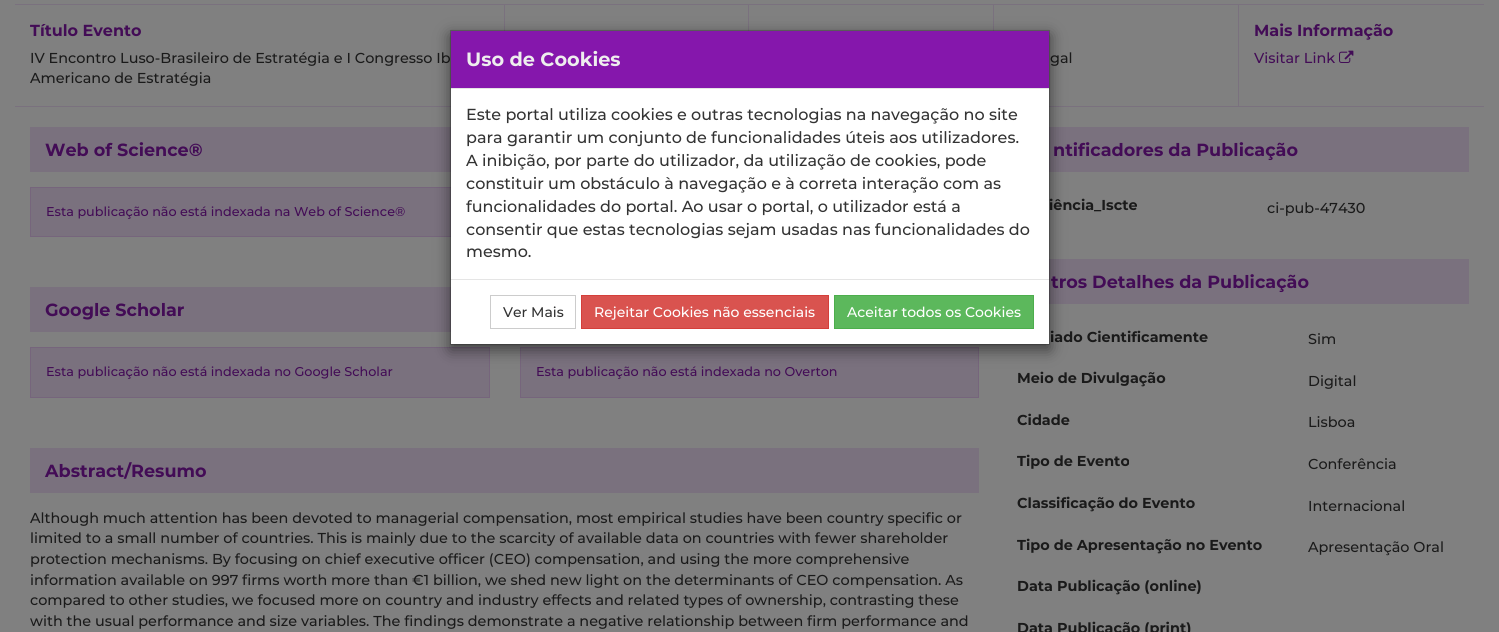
import math
import cairo

surface = cairo.ImageSurface(cairo.FORMAT_RGB24, 1499, 632)
ctx = cairo.Context(surface)
options = cairo.FontOptions()
options.set_hint_metrics(cairo.HINT_METRICS_OFF)
options.set_hint_style(cairo.HINT_STYLE_NONE)
ctx.set_font_options(options)
ctx.set_miter_limit(4)


def set_color(code):
    ctx.set_source_rgb(*(v / 255 for v in bytes.fromhex(code[-6:])))


def draw_text(x, y, s, family, size, color, bold=False, italic=False):
    ctx.select_font_face(family, cairo.FONT_SLANT_ITALIC if italic else cairo.FONT_SLANT_NORMAL, cairo.FONT_WEIGHT_BOLD if bold else cairo.FONT_WEIGHT_NORMAL)
    ctx.set_font_size(size)
    set_color(color)
    ctx.move_to(x, y)
    ctx.show_text(s)


def fill_rect(x, y, w, h, color):
    set_color(color)
    ctx.rectangle(x, y, w, h)
    ctx.fill()


def rounded_rect(x, y, w, h, r):
    ctx.new_sub_path()
    for i, (u, v) in enumerate([(x + w - r, y + h - r), (x + r, y + h - r), (x + r, y + r), (x + w - r, y + r)]):
        ctx.arc(u, v, r, i * math.pi / 2, (i + 1) * math.pi / 2)
    ctx.close_path()


def draw_shadow(x, y, w, h, r, blur, alpha):
    ctx.push_group_with_content(cairo.CONTENT_ALPHA)
    ctx.set_operator(cairo.OPERATOR_SOURCE)
    for i in range(15, -16, -2):
        e = blur * i / 6
        if min(w, h) + 2 * e > 0:
            ctx.set_source_rgba(0, 0, 0, alpha * math.erfc((i - 1) / 8.5) / 2)
            rounded_rect(x - e, y - e, w + 2 * e, h + 2 * e, max(0, min(r + e + blur * .6, min(w, h) / 2 + e)))
            ctx.fill()
    ctx.mask(ctx.pop_group())


def draw_image(path, x, y, w, h):
    ctx.save()
    ctx.set_source_surface(cairo.ImageSurface.create_from_png(path), x, y)
    ctx.rectangle(x, y, w, h)
    ctx.fill()
    ctx.restore()


set_color("#808080")
ctx.paint()
fill_rect(15, 4, 1469, 1, "#7a717e")
fill_rect(748, 4, 1, 27, "#7a717e")
fill_rect(993, 4, 1, 27, "#7a717e")
fill_rect(504, 4, 1, 27, "#7a717e")
fill_rect(15, 106, 436, 1, "#7a717e")
draw_text(30, 36, "Título Evento", "Montserrat", 16, "#430c56", bold=True)
draw_text(30, 63, "IV Encontro Luso-Brasileiro de Estratégia e I Congresso Ib", "Montserrat Medium", 14.4, "#1a1a1a")
draw_text(30, 83, "Americano de Estratégia", "Montserrat Medium", 14.4, "#1a1a1a")
fill_rect(1238, 4, 1, 103, "#7a717e")
fill_rect(1049, 106, 435, 1, "#7a717e")
draw_text(1050, 63, "gal", "Montserrat Medium", 14.4, "#1a1a1a")
draw_text(1254, 36, "Mais Informação", "Montserrat", 16, "#430c56", bold=True)
draw_text(1254, 63, "Visitar Link", "Montserrat Medium", 14.4, "#430c56")
draw_image("assets/img1.png", 1339, 50, 15, 13)
fill_rect(30, 127, 421, 45, "#7a717e")
draw_text(45, 156, "Web of Science®", "Montserrat", 17.6, "#430c56", bold=True)
fill_rect(31, 188, 420, 48, "#7a717e")
ctx.rectangle(30.5, 187.5, 459, 49)
set_color("#76657c")
ctx.set_line_width(1)
ctx.stroke()
draw_text(46, 216, "Esta publicação não está indexada na Web of Science®", "Montserrat Medium", 12.8, "#430c56")
fill_rect(30, 287, 421, 45, "#7a717e")
draw_text(45, 316, "Google Scholar", "Montserrat", 17.6, "#430c56", bold=True)
set_color("#7a717e")
ctx.rectangle(30.5, 347.5, 459, 50)
ctx.fill_preserve()
set_color("#76657c")
ctx.stroke()
draw_text(46, 376, "Esta publicação não está indexada no Google Scholar", "Montserrat Medium", 12.8, "#430c56")
set_color("#7a717e")
ctx.rectangle(520.5, 347.5, 458, 50)
ctx.fill_preserve()
set_color("#76657c")
ctx.stroke()
draw_text(536, 376, "Esta publicação não está indexada no Overton", "Montserrat Medium", 12.8, "#430c56")
fill_rect(30, 448, 949, 45, "#7a717e")
draw_text(45, 477, "Abstract/Resumo", "Montserrat", 17.6, "#430c56", bold=True)
draw_text(30, 523, "Although much attention has been devoted to managerial compensation, most empirical studies have been country specific or", "Montserrat Medium", 14.4, "#1a1a1a")
draw_text(30, 543, "limited to a small number of countries. This is mainly due to the scarcity of available data on countries with fewer shareholder", "Montserrat Medium", 14.4, "#1a1a1a")
draw_text(30, 564, "protection mechanisms. By focusing on chief executive officer (CEO) compensation, and using the more comprehensive", "Montserrat Medium", 14.4, "#1a1a1a")
draw_text(30, 585, "information available on 997 firms worth more than €1 billion, we shed new light on the determinants of CEO compensation. As", "Montserrat Medium", 14.4, "#1a1a1a")
draw_text(30, 605, "compared to other studies, we focused more on country and industry effects and related types of ownership, contrasting these", "Montserrat Medium", 14.4, "#1a1a1a")
draw_text(30, 626, "with the usual performance and size variables. The findings demonstrate a negative relationship between firm performance and", "Montserrat Medium", 14.4, "#1a1a1a")
fill_rect(1049, 127, 420, 45, "#7a717e")
draw_text(1053, 156, "ntificadores da Publicação", "Montserrat", 17.6, "#430c56", bold=True)
draw_text(1049, 210, "iência_Iscte", "Montserrat", 14.4, "#1a1a1a", bold=True)
draw_text(1267, 213, "ci-pub-47430", "Montserrat Medium", 14.4, "#1a1a1a")
fill_rect(1049, 259, 420, 45, "#7a717e")
draw_text(1051, 288, "tros Detalhes da Publicação", "Montserrat", 17.6, "#430c56", bold=True)
draw_text(1050, 342, "iado Cientificamente", "Montserrat", 14.4, "#1a1a1a", bold=True)
draw_text(1308, 344, "Sim", "Montserrat Medium", 14.4, "#1a1a1a")
draw_text(1017, 383, "Meio de Divulgação", "Montserrat", 14.4, "#1a1a1a", bold=True)
draw_text(1308, 386, "Digital", "Montserrat Medium", 14.4, "#1a1a1a")
draw_text(1017, 425, "Cidade", "Montserrat", 14.4, "#1a1a1a", bold=True)
draw_text(1308, 427, "Lisboa", "Montserrat Medium", 14.4, "#1a1a1a")
draw_text(1017, 466, "Tipo de Evento", "Montserrat", 14.4, "#1a1a1a", bold=True)
draw_text(1308, 469, "Conferência", "Montserrat Medium", 14.4, "#1a1a1a")
draw_text(1017, 508, "Classificação do Evento", "Montserrat", 14.4, "#1a1a1a", bold=True)
draw_text(1308, 511, "Internacional", "Montserrat Medium", 14.4, "#1a1a1a")
draw_text(1017, 550, "Tipo de Apresentação no Evento", "Montserrat", 14.4, "#1a1a1a", bold=True)
draw_text(1308, 552, "Apresentação Oral", "Montserrat Medium", 14.4, "#1a1a1a")
draw_text(1017, 591, "Data Publicação (online)", "Montserrat", 14.4, "#1a1a1a", bold=True)
draw_text(1017, 633, "Data Publicação (print)", "Montserrat", 14.4, "#1a1a1a", bold=True)
set_color("#000000")
draw_shadow(450, 35, 600, 315, 0, 7.5, 0.5)
fill_rect(451, 89, 598, 255, "#ffffff")
ctx.rectangle(450.5, 30.5, 599, 314)
ctx.set_source_rgba(0, 0, 0, 0.2)
ctx.stroke()
fill_rect(451, 31, 598, 57, "#8517ac")
fill_rect(451, 88, 598, 1, "#e5e5e5")
draw_text(466, 66, "Uso de Cookies", "Montserrat", 19.25, "#eeeeee", bold=True)
draw_text(466, 120, "Este portal utiliza cookies e outras tecnologias na navegação no site", "Montserrat Medium", 16, "#333333")
draw_text(466, 143, "para garantir um conjunto de funcionalidades úteis aos utilizadores.", "Montserrat Medium", 16, "#333333")
draw_text(466, 166, "A inibição, por parte do utilizador, da utilização de cookies, pode", "Montserrat Medium", 16, "#333333")
draw_text(466, 189, "constituir um obstáculo à navegação e à correta interação com as", "Montserrat Medium", 16, "#333333")
draw_text(466, 212, "funcionalidades do portal. Ao usar o portal, o utilizador está a", "Montserrat Medium", 16, "#333333")
draw_text(466, 235, "consentir que estas tecnologias sejam usadas nas funcionalidades do", "Montserrat Medium", 16, "#333333")
draw_text(466, 257, "mesmo.", "Montserrat Medium", 16, "#333333")
fill_rect(451, 279, 598, 1, "#e5e5e5")
ctx.rectangle(490.5, 295.5, 85, 33)
set_color("#cccccc")
ctx.stroke()
draw_text(503, 317, "Ver Mais", "Montserrat Medium", 14, "#333333")
set_color("#d9534f")
ctx.rectangle(581.5, 295.5, 247, 33)
ctx.fill_preserve()
set_color("#d43f3a")
ctx.stroke()
draw_text(594, 317, "Rejeitar Cookies não essenciais", "Montserrat Medium", 14, "#ffffff")
set_color("#5cb85c")
ctx.rectangle(834.5, 295.5, 199, 33)
ctx.fill_preserve()
set_color("#4cae4c")
ctx.stroke()
draw_text(847, 317, "Aceitar todos os Cookies", "Montserrat Medium", 14, "#ffffff")
surface.write_to_png("output.png")
